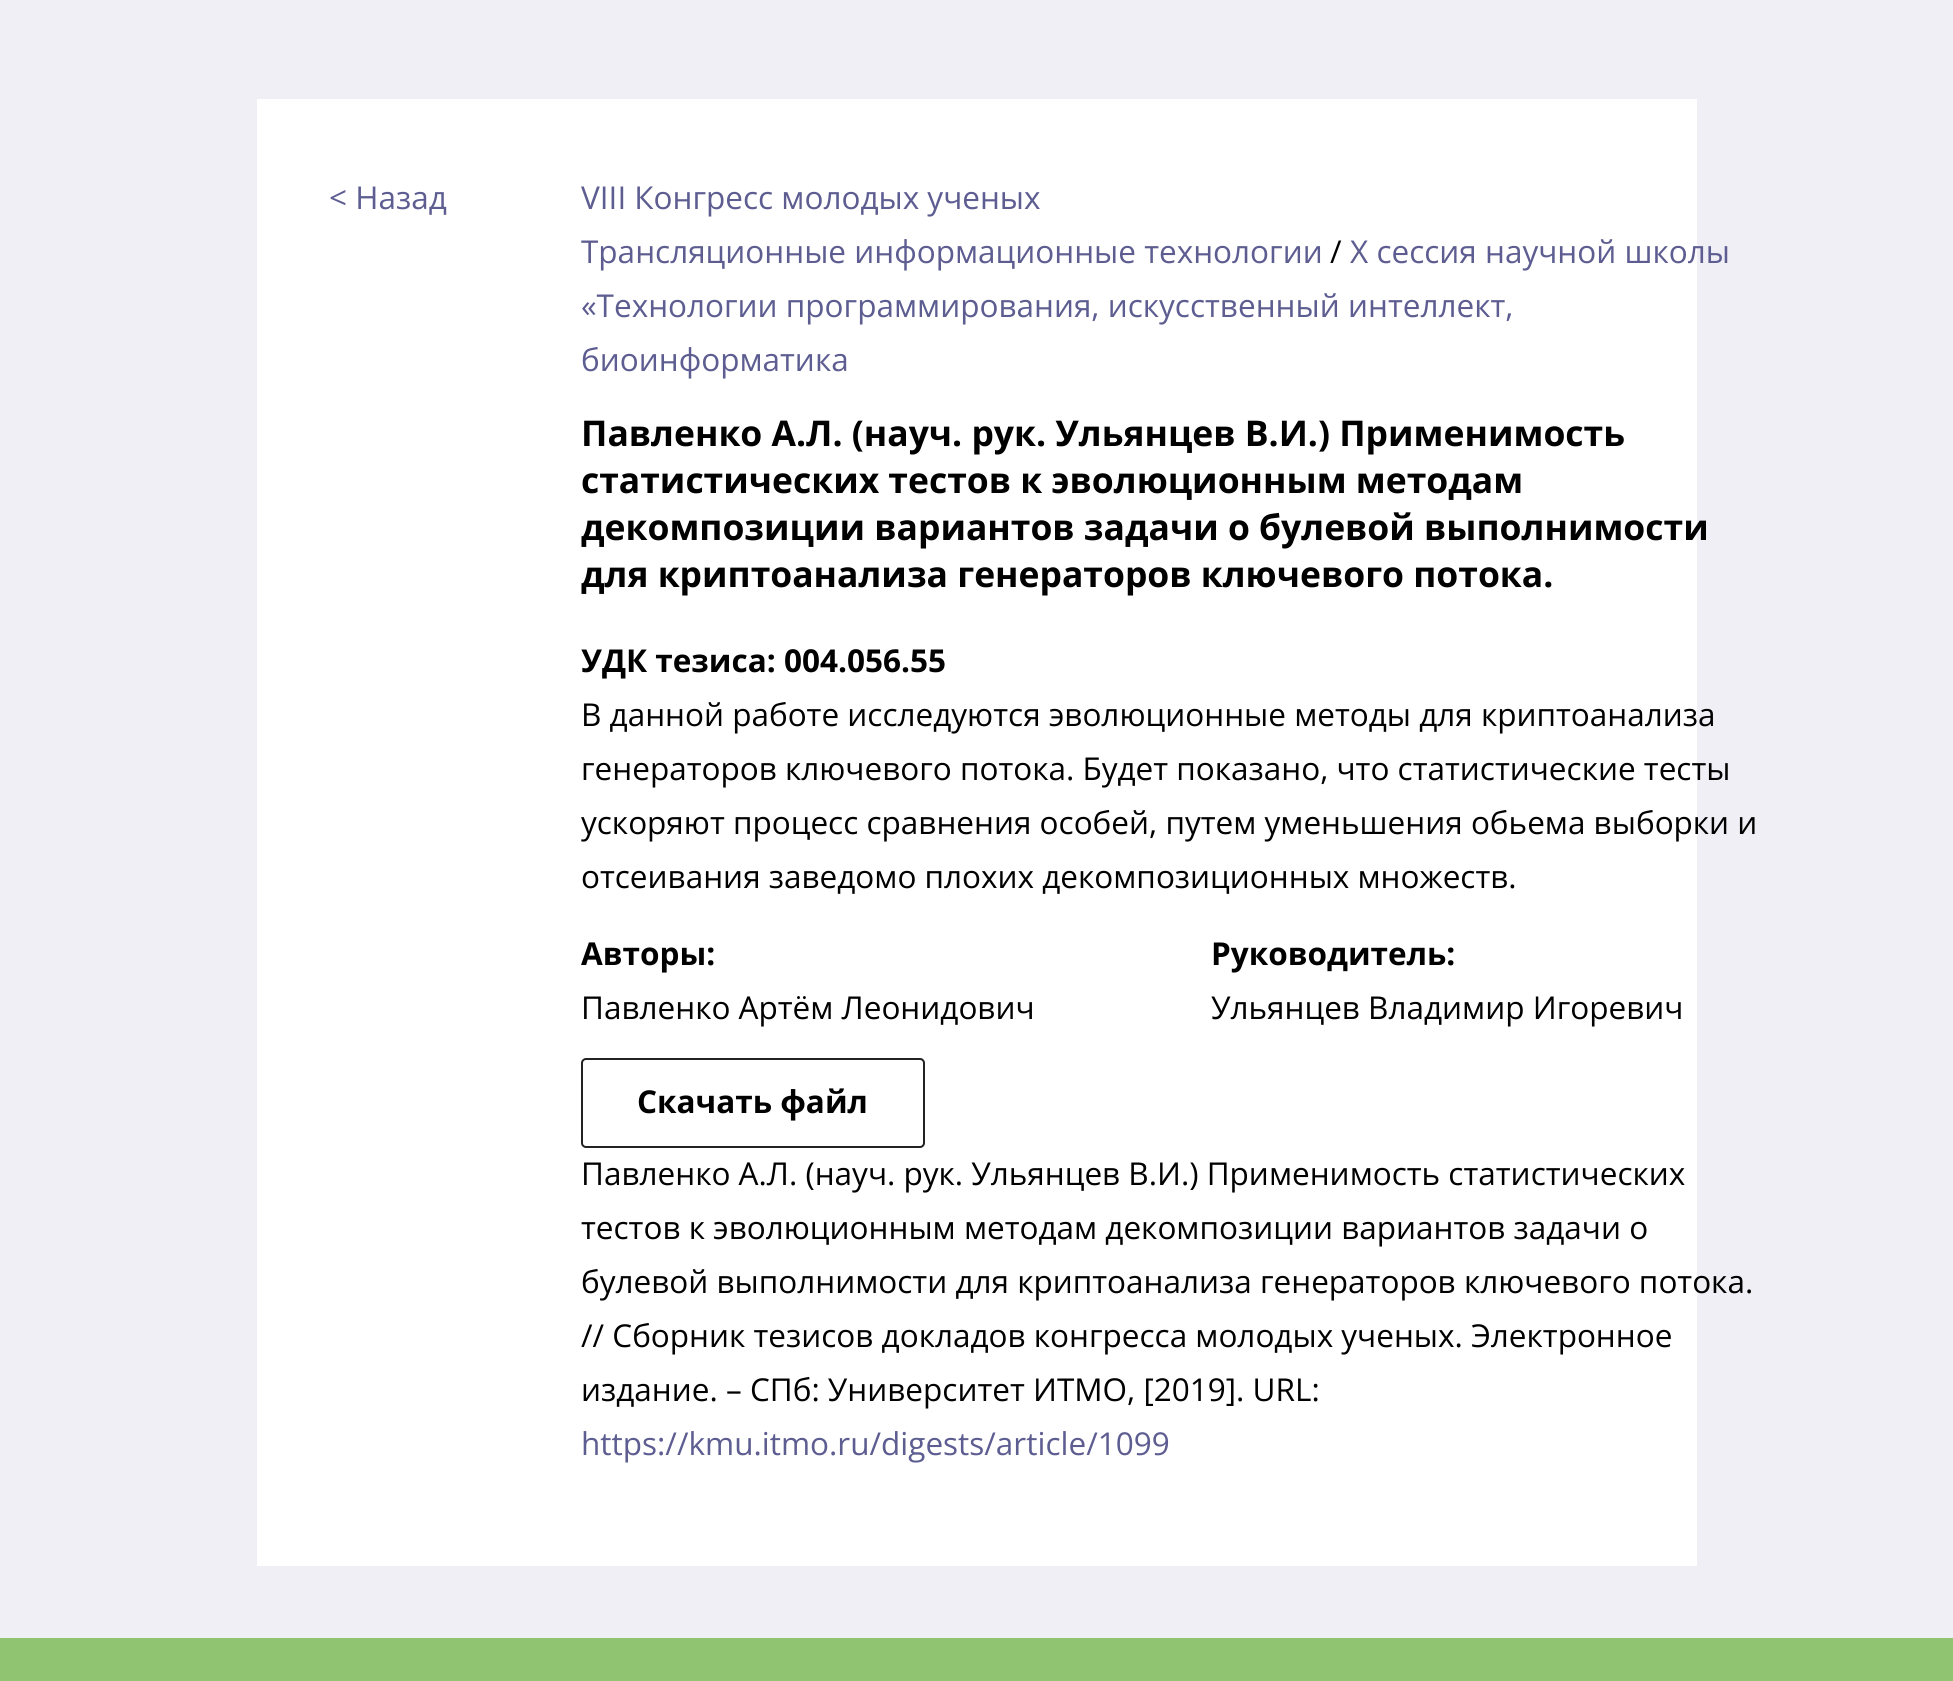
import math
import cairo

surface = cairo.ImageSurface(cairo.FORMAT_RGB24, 1953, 1681)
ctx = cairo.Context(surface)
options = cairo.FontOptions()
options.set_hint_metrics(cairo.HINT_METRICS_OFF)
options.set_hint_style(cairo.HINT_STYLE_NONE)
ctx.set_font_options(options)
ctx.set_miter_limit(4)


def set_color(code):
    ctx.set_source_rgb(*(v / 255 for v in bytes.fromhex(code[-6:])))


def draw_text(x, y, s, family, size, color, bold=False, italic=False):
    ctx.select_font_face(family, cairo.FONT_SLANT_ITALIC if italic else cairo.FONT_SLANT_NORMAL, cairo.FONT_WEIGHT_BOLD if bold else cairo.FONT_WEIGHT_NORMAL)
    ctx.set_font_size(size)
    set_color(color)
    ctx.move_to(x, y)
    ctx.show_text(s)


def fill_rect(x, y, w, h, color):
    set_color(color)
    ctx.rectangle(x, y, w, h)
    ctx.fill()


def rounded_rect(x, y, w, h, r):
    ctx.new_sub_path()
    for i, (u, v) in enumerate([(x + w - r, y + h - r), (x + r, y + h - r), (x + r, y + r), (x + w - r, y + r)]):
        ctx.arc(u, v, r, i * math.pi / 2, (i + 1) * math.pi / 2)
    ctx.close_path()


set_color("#efeff5")
ctx.paint()
fill_rect(257, 99, 1440, 1467, "#ffffff")
draw_text(329, 209, "< Назад", "Open Sans", 31.5, "#5d5d91")
draw_text(581, 209, "VIII Конгресс молодых ученых", "Open Sans", 31.5, "#5d5d91")
draw_text(581, 263, "Трансляционные информационные технологии", "Open Sans", 31.5, "#5d5d91")
draw_text(1330, 263, "/", "Open Sans", 31.5, "#000000")
draw_text(1350, 263, "X сессия научной школы", "Open Sans", 31.5, "#5d5d91")
draw_text(581, 317, "«Технологии программирования, искусственный интеллект,", "Open Sans", 31.5, "#5d5d91")
draw_text(581, 371, "биоинформатика", "Open Sans", 31.5, "#5d5d91")
draw_text(581, 446, "Павленко А.Л. (науч. рук. Ульянцев В.И.) Применимость", "Open Sans", 35.45, "#000000", bold=True)
draw_text(581, 493, "статистических тестов к эволюционным методам", "Open Sans", 35.45, "#000000", bold=True)
draw_text(581, 540, "декомпозиции вариантов задачи о булевой выполнимости", "Open Sans", 35.45, "#000000", bold=True)
draw_text(581, 587, "для криптоанализа генераторов ключевого потока.", "Open Sans", 35.45, "#000000", bold=True)
draw_text(581, 672, "УДК тезиса: 004.056.55", "Open Sans", 31.5, "#000000", bold=True)
draw_text(581, 726, "В данной работе исследуются эволюционные методы для криптоанализа", "Open Sans", 31.5, "#000000")
draw_text(581, 780, "генераторов ключевого потока. Будет показано, что статистические тесты", "Open Sans", 31.5, "#000000")
draw_text(581, 834, "ускоряют процесс сравнения особей, путем уменьшения обьема выборки и", "Open Sans", 31.5, "#000000")
draw_text(581, 888, "отсеивания заведомо плохих декомпозиционных множеств.", "Open Sans", 31.5, "#000000")
draw_text(581, 965, "Авторы:", "Open Sans", 31.5, "#000000", bold=True)
draw_text(581, 1019, "Павленко Артём Леонидович", "Open Sans", 31.5, "#000000")
draw_text(1211, 965, "Руководитель:", "Open Sans", 31.5, "#000000", bold=True)
draw_text(1211, 1019, "Ульянцев Владимир Игоревич", "Open Sans", 31.5, "#000000")
rounded_rect(582, 1059, 342, 88, 4)
set_color("#222222")
ctx.stroke()
draw_text(637, 1113, "Скачать файл", "Open Sans", 31.5, "#000000", bold=True)
draw_text(581, 1185, "Павленко А.Л. (науч. рук. Ульянцев В.И.) Применимость статистических", "Open Sans", 31.5, "#000000")
draw_text(581, 1239, "тестов к эволюционным методам декомпозиции вариантов задачи о", "Open Sans", 31.5, "#000000")
draw_text(581, 1293, "булевой выполнимости для криптоанализа генераторов ключевого потока.", "Open Sans", 31.5, "#000000")
draw_text(581, 1347, "// Сборник тезисов докладов конгресса молодых ученых. Электронное", "Open Sans", 31.5, "#000000")
draw_text(581, 1401, "издание. – СПб: Университет ИТМО, [2019]. URL:", "Open Sans", 31.5, "#000000")
draw_text(581, 1455, "https://kmu.itmo.ru/digests/article/1099", "Open Sans", 31.5, "#5d5d91")
fill_rect(0, 1638, 1953, 43, "#90c471")
surface.write_to_png("output.png")
